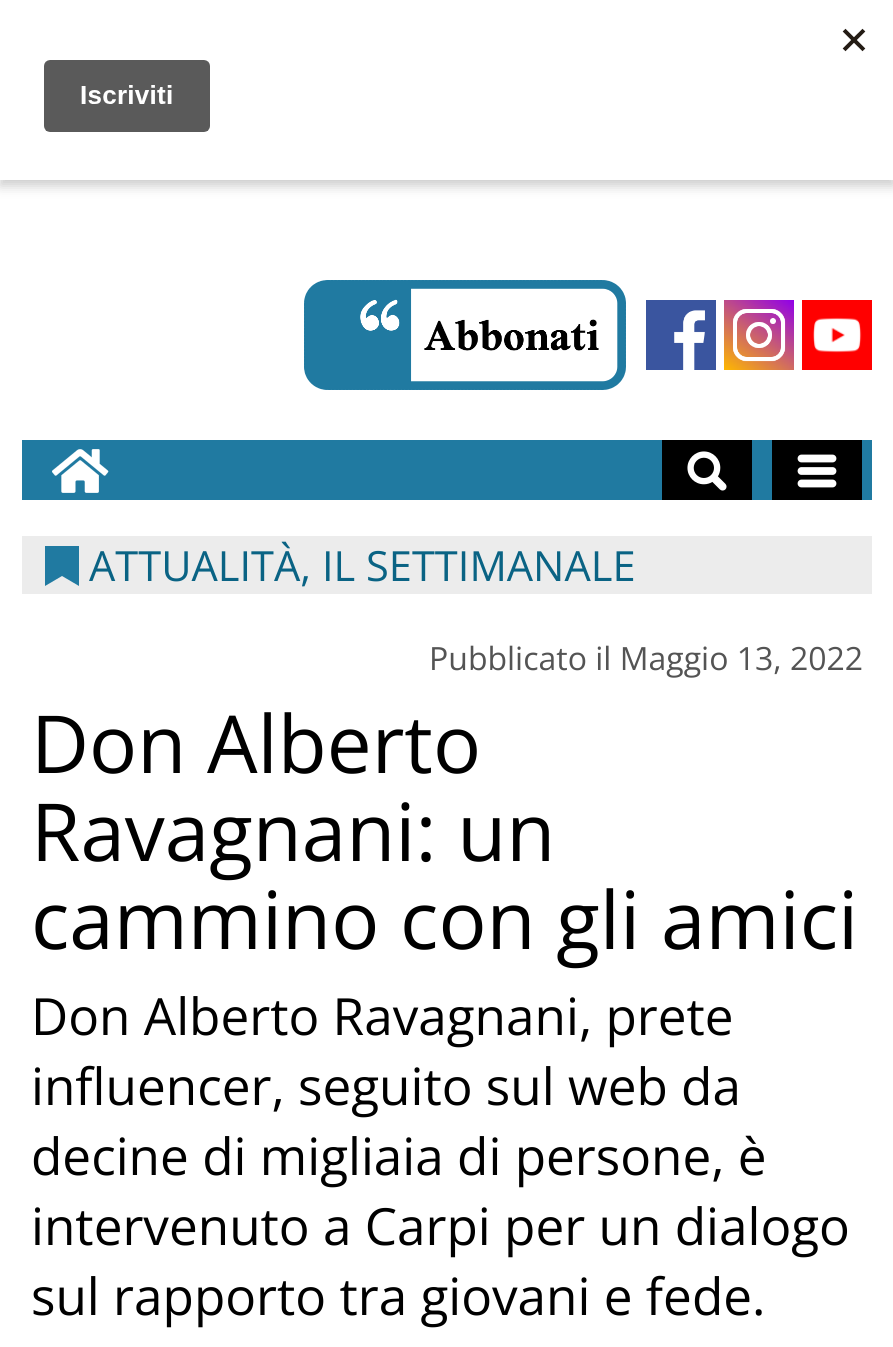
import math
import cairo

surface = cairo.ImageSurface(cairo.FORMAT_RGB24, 893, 1347)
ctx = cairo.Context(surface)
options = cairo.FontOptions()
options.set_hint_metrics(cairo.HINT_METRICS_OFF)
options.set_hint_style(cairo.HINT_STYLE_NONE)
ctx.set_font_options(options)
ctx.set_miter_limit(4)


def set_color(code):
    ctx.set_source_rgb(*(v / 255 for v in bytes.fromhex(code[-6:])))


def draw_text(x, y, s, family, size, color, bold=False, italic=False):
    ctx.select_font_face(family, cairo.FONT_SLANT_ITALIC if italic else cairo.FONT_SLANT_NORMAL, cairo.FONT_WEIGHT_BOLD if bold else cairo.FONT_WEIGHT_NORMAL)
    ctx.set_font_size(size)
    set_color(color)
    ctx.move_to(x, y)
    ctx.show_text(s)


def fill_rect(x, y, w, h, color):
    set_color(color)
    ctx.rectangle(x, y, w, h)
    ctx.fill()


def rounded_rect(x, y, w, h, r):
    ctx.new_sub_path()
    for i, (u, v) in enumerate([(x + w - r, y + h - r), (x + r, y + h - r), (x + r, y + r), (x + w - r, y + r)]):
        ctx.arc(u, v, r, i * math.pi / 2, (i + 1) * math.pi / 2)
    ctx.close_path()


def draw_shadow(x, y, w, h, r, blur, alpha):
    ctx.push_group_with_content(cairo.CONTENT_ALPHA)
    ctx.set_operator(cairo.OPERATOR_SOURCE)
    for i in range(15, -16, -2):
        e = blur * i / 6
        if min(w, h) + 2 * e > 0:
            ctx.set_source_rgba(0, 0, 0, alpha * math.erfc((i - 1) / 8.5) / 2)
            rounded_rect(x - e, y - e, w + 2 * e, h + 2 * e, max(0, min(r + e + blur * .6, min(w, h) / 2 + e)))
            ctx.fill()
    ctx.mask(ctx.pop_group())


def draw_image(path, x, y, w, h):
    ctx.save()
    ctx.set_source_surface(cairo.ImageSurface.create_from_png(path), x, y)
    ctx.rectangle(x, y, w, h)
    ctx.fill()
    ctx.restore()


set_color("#ffffff")
ctx.paint()
set_color("#000000")
draw_shadow(0, 6, 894, 180, 0, 6, 0.2)
fill_rect(0, 0, 893, 180, "#ffffff")
draw_image("assets/img1.png", 44, 28, 822, 104)
draw_image("assets/img2.png", 304, 280, 322, 110)
draw_image("assets/img3.png", 646, 300, 70, 70)
draw_image("assets/img4.png", 724, 300, 70, 70)
draw_image("assets/img5.png", 802, 300, 70, 70)
fill_rect(22, 440, 850, 60, "#207aa1")
draw_image("assets/img6.png", 52, 449, 57, 44)
fill_rect(662, 440, 90, 60, "#000000")
draw_image("assets/img7.png", 687, 451, 40, 40)
fill_rect(772, 440, 90, 60, "#000000")
ctx.new_path()
ctx.move_to(801.5, 458.5)
ctx.line_to(832.5, 458.5)
ctx.move_to(801.5, 471)
ctx.line_to(832.5, 471)
ctx.move_to(801.5, 483.5)
ctx.line_to(832.5, 483.5)
set_color("#ffffff")
ctx.set_line_width(7.8)
ctx.set_line_cap(cairo.LINE_CAP_ROUND)
ctx.stroke()
fill_rect(22, 536, 850, 58, "#ececec")
set_color("#207aa1")
ctx.new_path()
ctx.move_to(45, 546)
ctx.line_to(79, 546)
ctx.line_to(79, 586)
ctx.line_to(62, 576)
ctx.line_to(45, 586)
ctx.close_path()
ctx.fill()
draw_text(89, 581, "ATTUALITÀ, IL SETTIMANALE", "Open Sans", 41.6, "#0a6384")
draw_text(429, 670, "Pubblicato il Maggio 13, 2022", "Open Sans", 32, "#545454")
draw_text(31, 773, "Don Alberto", "Open Sans", 80, "#000000")
draw_text(31, 861, "Ravagnani: un", "Open Sans", 80, "#000000")
draw_text(31, 949, "cammino con gli amici", "Open Sans", 80, "#000000")
draw_text(31, 1035, "Don Alberto Ravagnani, prete", "Open Sans", 51.25, "#000000")
draw_text(31, 1105, "influencer, seguito sul web da", "Open Sans", 51.25, "#000000")
draw_text(31, 1175, "decine di migliaia di persone, è", "Open Sans", 51.25, "#000000")
draw_text(31, 1245, "intervenuto a Carpi per un dialogo", "Open Sans", 51.25, "#000000")
draw_text(31, 1315, "sul rapporto tra giovani e fede.", "Open Sans", 51.25, "#000000")
surface.write_to_png("output.png")
